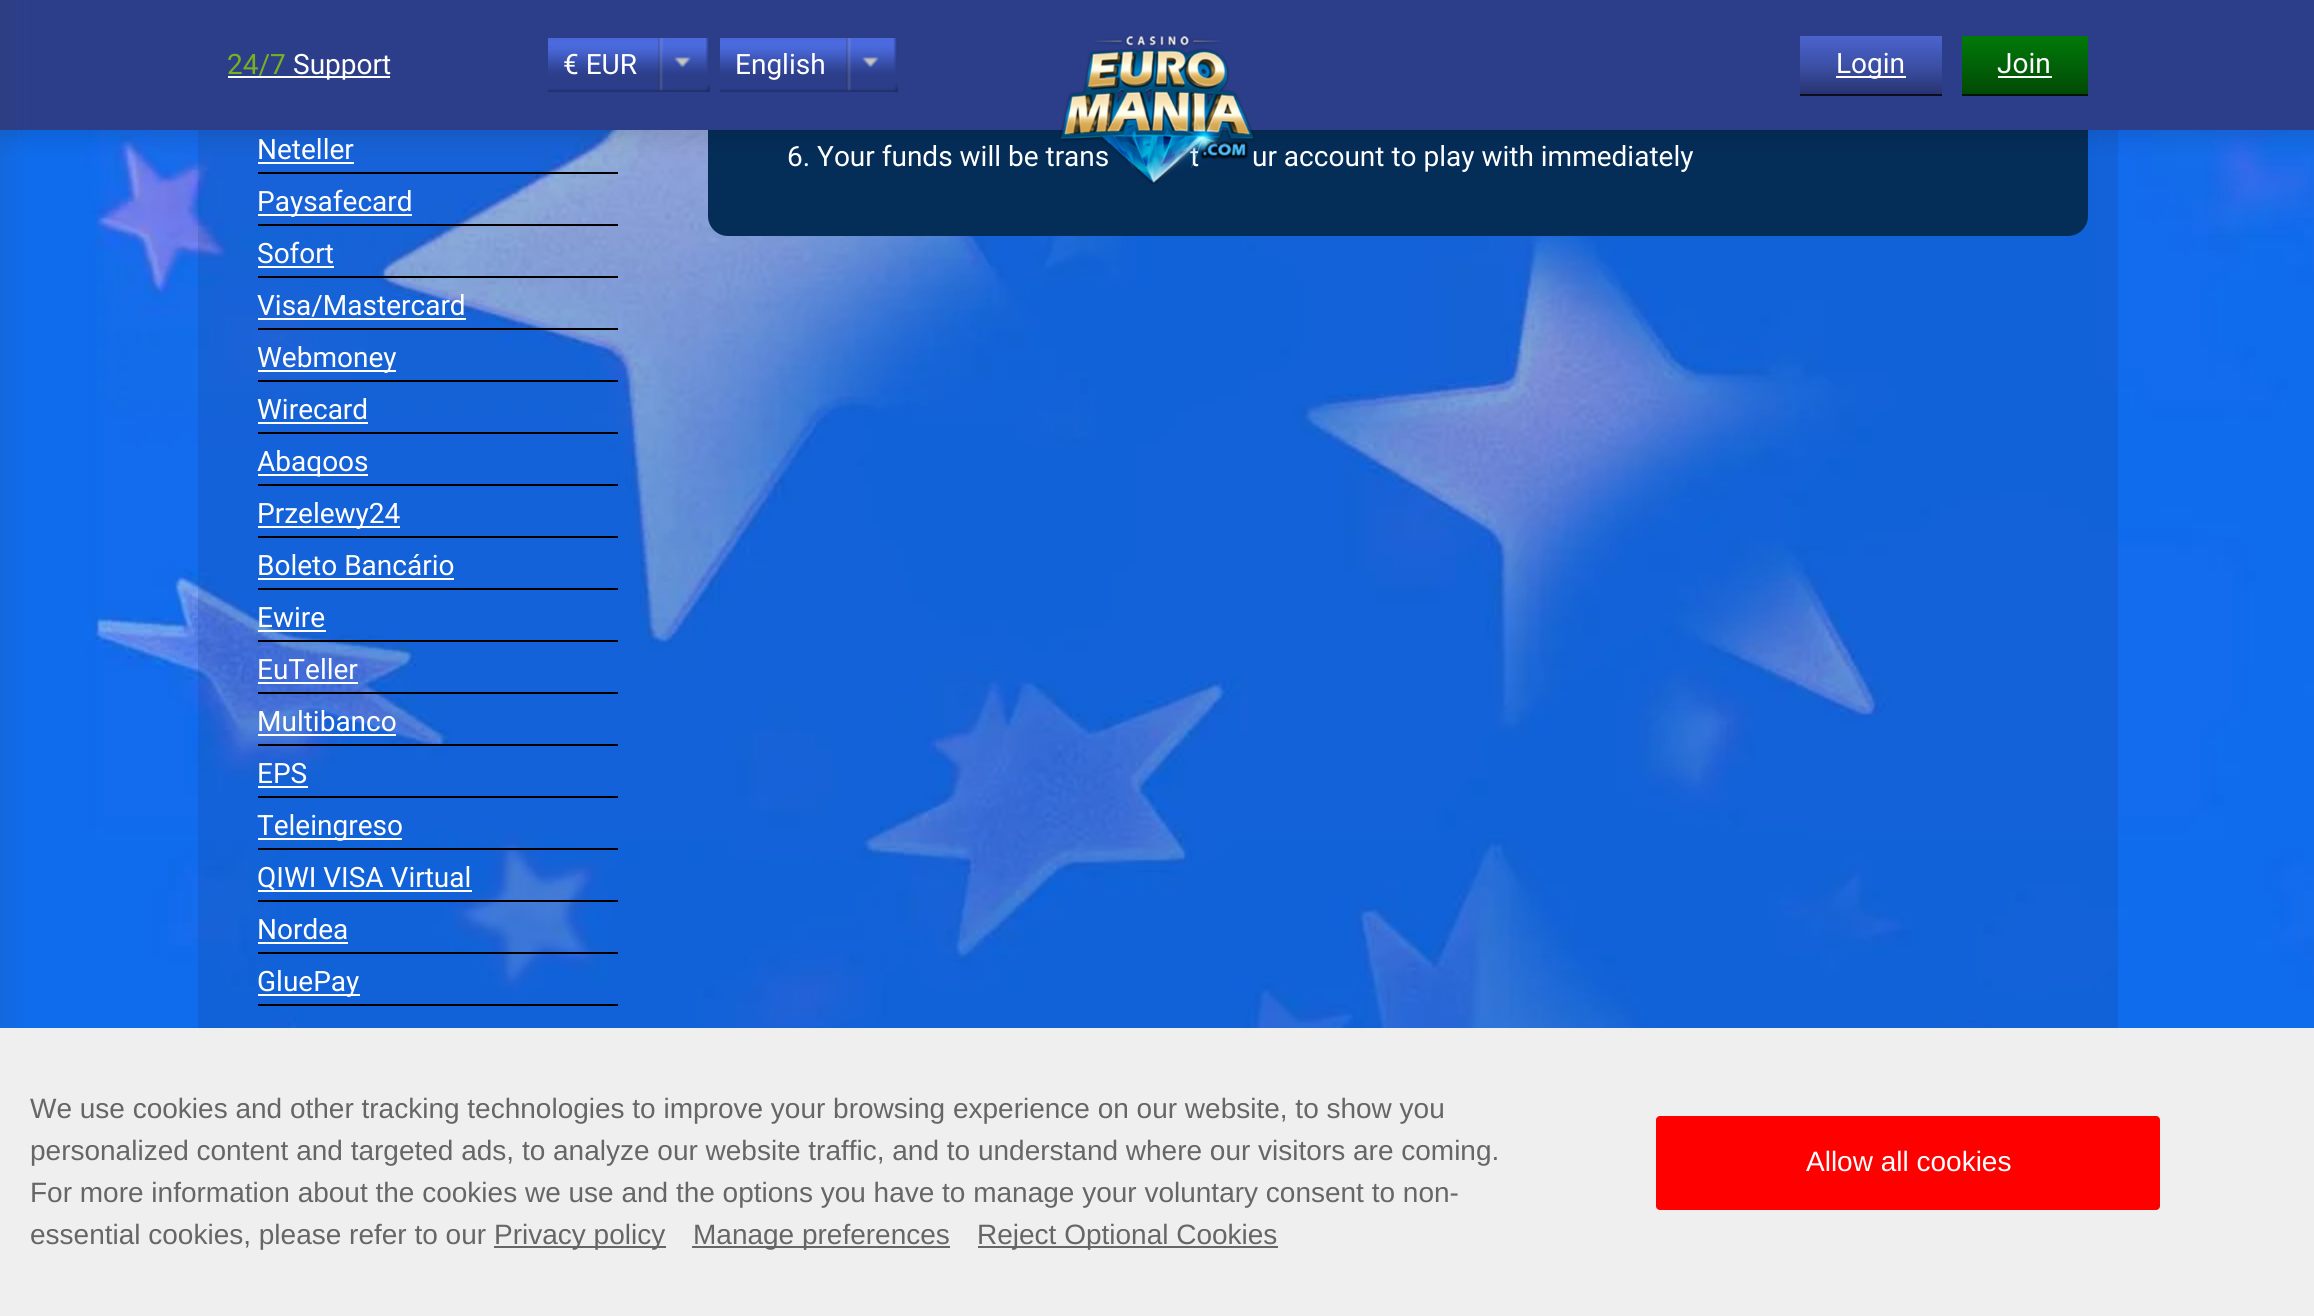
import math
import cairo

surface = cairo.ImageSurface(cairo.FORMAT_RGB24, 2314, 1316)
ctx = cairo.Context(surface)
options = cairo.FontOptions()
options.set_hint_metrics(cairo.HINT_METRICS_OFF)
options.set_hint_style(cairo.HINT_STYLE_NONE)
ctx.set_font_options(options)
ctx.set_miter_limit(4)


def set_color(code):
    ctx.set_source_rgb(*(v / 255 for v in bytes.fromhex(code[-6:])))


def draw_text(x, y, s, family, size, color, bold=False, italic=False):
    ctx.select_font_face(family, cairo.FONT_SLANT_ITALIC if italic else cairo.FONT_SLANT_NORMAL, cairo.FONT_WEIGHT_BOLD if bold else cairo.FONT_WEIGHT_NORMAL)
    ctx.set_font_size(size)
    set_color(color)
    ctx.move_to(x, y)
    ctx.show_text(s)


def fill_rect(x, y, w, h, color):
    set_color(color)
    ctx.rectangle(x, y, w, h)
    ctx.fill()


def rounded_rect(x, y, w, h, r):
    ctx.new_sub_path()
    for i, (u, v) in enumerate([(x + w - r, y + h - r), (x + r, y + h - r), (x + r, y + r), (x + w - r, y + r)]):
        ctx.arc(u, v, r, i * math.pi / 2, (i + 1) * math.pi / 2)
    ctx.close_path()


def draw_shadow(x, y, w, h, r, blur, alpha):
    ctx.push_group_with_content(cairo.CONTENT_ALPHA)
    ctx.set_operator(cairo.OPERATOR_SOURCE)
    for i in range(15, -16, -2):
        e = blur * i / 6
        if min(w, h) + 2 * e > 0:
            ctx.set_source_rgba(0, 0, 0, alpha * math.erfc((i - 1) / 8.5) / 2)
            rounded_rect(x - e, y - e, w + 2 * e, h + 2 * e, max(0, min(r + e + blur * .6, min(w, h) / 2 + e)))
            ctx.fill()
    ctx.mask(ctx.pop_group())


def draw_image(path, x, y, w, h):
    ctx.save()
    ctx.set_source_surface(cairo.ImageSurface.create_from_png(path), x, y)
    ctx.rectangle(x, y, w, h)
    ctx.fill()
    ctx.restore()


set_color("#ffffff")
ctx.paint()
draw_image("assets/img1.png", 0, 130, 2314, 898)
ctx.set_source_rgba(0.11, 0.243, 0.545, 0.2)
ctx.rectangle(198, 130, 1920, 898)
ctx.fill()
fill_rect(258, 162, 96, 2, "#ffffff")
set_color("#042d58")
rounded_rect(708, -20, 1380, 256, 20)
ctx.fill()
set_color("#000000")
draw_shadow(-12, -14, 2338, 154, 0, 10, 0.1)
fill_rect(0, 0, 2314, 130, "#2c3e8a")
set_color("#414141")
draw_shadow(-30, -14, 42, 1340, 0, 10, 0.1)
draw_text(227, 74, "24/7", "Roboto", 28, "#76b11f")
fill_rect(228, 76, 162, 2, "#ffffff")
draw_text(293, 74, "Support", "Roboto", 28, "#ffffff")
draw_image("assets/img2.png", 548, 38, 162, 54)
draw_text(563, 74, "€ EUR", "Roboto", 28, "#ffffff")
draw_image("assets/img3.png", 658, 38, 52, 54)
draw_image("assets/img4.png", 720, 38, 178, 54)
draw_text(735, 74, "English", "Roboto", 28, "#ffffff")
draw_image("assets/img3.png", 846, 38, 52, 54)
draw_text(787, 166, "6. Your funds will be trans", "Roboto", 28, "#ffffff")
draw_text(1190, 166, "t", "Roboto", 28, "#ffffff")
draw_text(1252, 166, "ur account to play with immediately", "Roboto", 28, "#ffffff")
draw_image("assets/img5.png", 1059, 35, 196, 150)
gradient = cairo.LinearGradient(1871, 36, 1871, 94)
gradient.add_color_stop_rgba(0, 0.294, 0.388, 0.804, 1)
gradient.add_color_stop_rgba(0.5, 0.235, 0.314, 0.655, 1)
gradient.add_color_stop_rgba(1, 0.157, 0.2, 0.443, 1)
ctx.set_source(gradient)
ctx.rectangle(1800, 36, 142, 58)
ctx.fill()
fill_rect(1800, 94, 142, 2, "#0b0e1f")
fill_rect(1836, 76, 70, 2, "#ffffff")
draw_text(1836, 73, "Login", "Roboto", 28, "#ffffff")
gradient = cairo.LinearGradient(2025, 36, 2025, 94)
gradient.add_color_stop_rgba(0, 0.004, 0.478, 0.035, 1)
gradient.add_color_stop_rgba(1, 0.004, 0.29, 0.02, 1)
ctx.set_source(gradient)
ctx.rectangle(1962, 36, 126, 58)
ctx.fill()
fill_rect(1962, 94, 126, 2, "#021408")
draw_text(1997, 73, "Join", "Roboto", 28, "#ffffff")
fill_rect(1998, 76, 54, 2, "#ffffff")
fill_rect(258, 172, 360, 2, "#000000")
draw_text(257, 159, "Neteller", "Roboto", 28, "#ffffff")
fill_rect(258, 224, 360, 2, "#000000")
fill_rect(258, 214, 154, 2, "#ffffff")
draw_text(257, 211, "Paysafecard", "Roboto", 28, "#ffffff")
fill_rect(258, 276, 360, 2, "#000000")
draw_text(257, 263, "Sofort", "Roboto", 28, "#ffffff")
fill_rect(258, 266, 76, 2, "#ffffff")
fill_rect(258, 328, 360, 2, "#000000")
draw_text(257, 315, "Visa/Mastercard", "Roboto", 28, "#ffffff")
fill_rect(258, 318, 208, 2, "#ffffff")
fill_rect(258, 380, 360, 2, "#000000")
fill_rect(258, 370, 138, 2, "#ffffff")
draw_text(257, 367, "Webmoney", "Roboto", 28, "#ffffff")
fill_rect(258, 432, 360, 2, "#000000")
draw_text(257, 419, "Wirecard", "Roboto", 28, "#ffffff")
fill_rect(258, 422, 110, 2, "#ffffff")
fill_rect(258, 484, 360, 2, "#000000")
fill_rect(258, 474, 110, 2, "#ffffff")
draw_text(257, 471, "Abaqoos", "Roboto", 28, "#ffffff")
fill_rect(258, 536, 360, 2, "#000000")
fill_rect(258, 526, 142, 2, "#ffffff")
draw_text(257, 523, "Przelewy24", "Roboto", 28, "#ffffff")
fill_rect(258, 588, 360, 2, "#000000")
draw_text(257, 575, "Boleto Bancário", "Roboto", 28, "#ffffff")
fill_rect(258, 578, 196, 2, "#ffffff")
fill_rect(258, 640, 360, 2, "#000000")
draw_text(257, 627, "Ewire", "Roboto", 28, "#ffffff")
fill_rect(258, 630, 68, 2, "#ffffff")
fill_rect(258, 692, 360, 2, "#000000")
draw_text(257, 679, "EuTeller", "Roboto", 28, "#ffffff")
fill_rect(258, 682, 100, 2, "#ffffff")
fill_rect(258, 744, 360, 2, "#000000")
draw_text(257, 731, "Multibanco", "Roboto", 28, "#ffffff")
fill_rect(258, 734, 138, 2, "#ffffff")
fill_rect(258, 796, 360, 2, "#000000")
draw_text(257, 783, "EPS", "Roboto", 28, "#ffffff")
fill_rect(258, 786, 50, 2, "#ffffff")
fill_rect(258, 848, 360, 2, "#000000")
fill_rect(258, 838, 144, 2, "#ffffff")
draw_text(257, 835, "Teleingreso", "Roboto", 28, "#ffffff")
fill_rect(258, 900, 360, 2, "#000000")
fill_rect(258, 890, 214, 2, "#ffffff")
draw_text(257, 887, "QIWI VISA Virtual", "Roboto", 28, "#ffffff")
fill_rect(258, 952, 360, 2, "#000000")
draw_text(257, 939, "Nordea", "Roboto", 28, "#ffffff")
fill_rect(258, 942, 90, 2, "#ffffff")
fill_rect(258, 1004, 360, 2, "#000000")
fill_rect(258, 994, 102, 2, "#ffffff")
draw_text(257, 991, "GluePay", "Roboto", 28, "#ffffff")
fill_rect(3, 1028, 2311, 288, "#efefef")
draw_text(30, 1118, "We use cookies and other tracking technologies to improve your browsing experience on our website, to show you", "Liberation Sans", 28, "#666666")
draw_text(30, 1160, "personalized content and targeted ads, to analyze our website traffic, and to understand where our visitors are coming.", "Liberation Sans", 28, "#666666")
draw_text(30, 1202, "For more information about the cookies we use and the options you have to manage your voluntary consent to non-", "Liberation Sans", 28, "#666666")
draw_text(30, 1244, "essential cookies, please refer to our", "Liberation Sans", 28, "#666666")
fill_rect(494, 1246, 172, 2, "#666666")
draw_text(494, 1244, "Privacy policy", "Liberation Sans", 28, "#666666")
fill_rect(692, 1246, 258, 2, "#666666")
draw_text(693, 1244, "Manage preferences", "Liberation Sans", 28, "#666666")
fill_rect(978, 1246, 300, 2, "#666666")
draw_text(977, 1244, "Reject Optional Cookies", "Liberation Sans", 28, "#666666")
set_color("#ff0000")
rounded_rect(1656, 1116, 504, 94, 4)
ctx.fill()
draw_text(1806, 1171, "Allow all cookies", "Liberation Sans", 28, "#ffffff")
surface.write_to_png("output.png")
